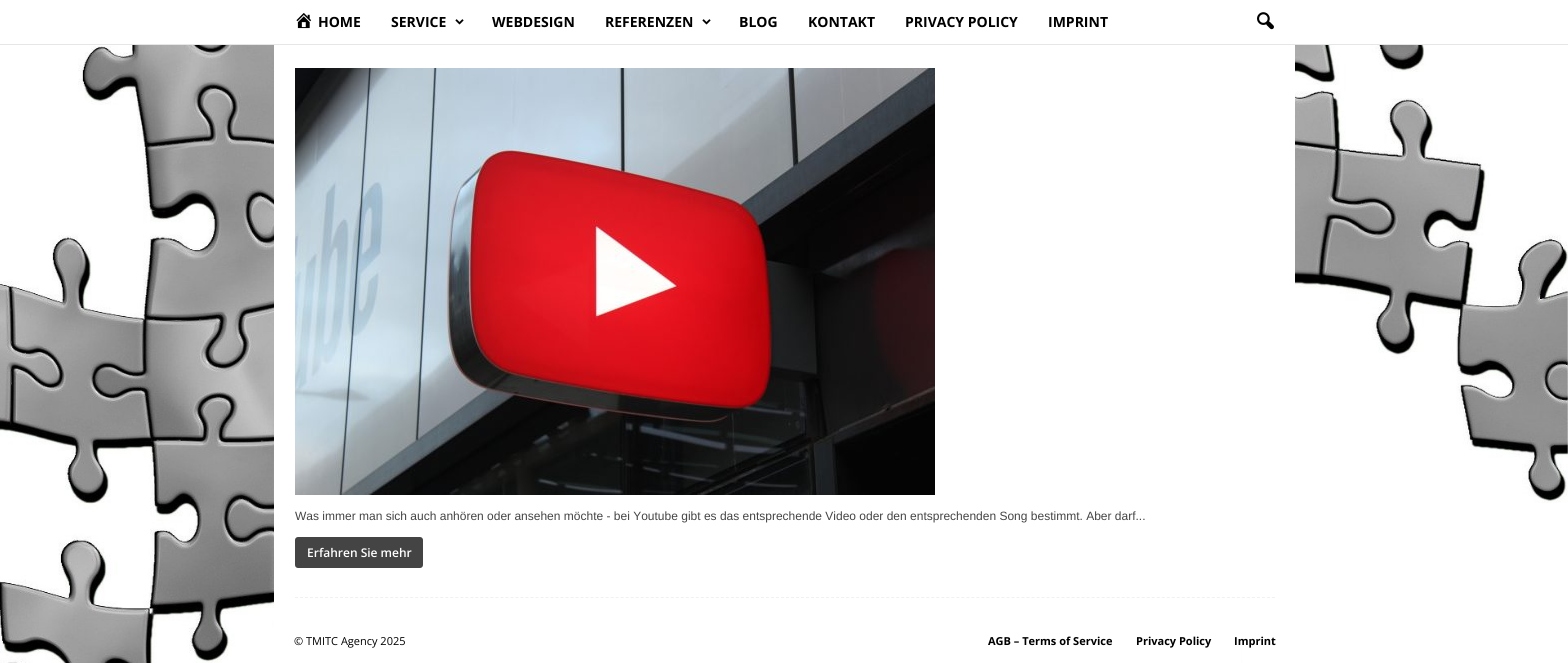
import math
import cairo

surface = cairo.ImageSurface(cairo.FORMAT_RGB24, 1568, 663)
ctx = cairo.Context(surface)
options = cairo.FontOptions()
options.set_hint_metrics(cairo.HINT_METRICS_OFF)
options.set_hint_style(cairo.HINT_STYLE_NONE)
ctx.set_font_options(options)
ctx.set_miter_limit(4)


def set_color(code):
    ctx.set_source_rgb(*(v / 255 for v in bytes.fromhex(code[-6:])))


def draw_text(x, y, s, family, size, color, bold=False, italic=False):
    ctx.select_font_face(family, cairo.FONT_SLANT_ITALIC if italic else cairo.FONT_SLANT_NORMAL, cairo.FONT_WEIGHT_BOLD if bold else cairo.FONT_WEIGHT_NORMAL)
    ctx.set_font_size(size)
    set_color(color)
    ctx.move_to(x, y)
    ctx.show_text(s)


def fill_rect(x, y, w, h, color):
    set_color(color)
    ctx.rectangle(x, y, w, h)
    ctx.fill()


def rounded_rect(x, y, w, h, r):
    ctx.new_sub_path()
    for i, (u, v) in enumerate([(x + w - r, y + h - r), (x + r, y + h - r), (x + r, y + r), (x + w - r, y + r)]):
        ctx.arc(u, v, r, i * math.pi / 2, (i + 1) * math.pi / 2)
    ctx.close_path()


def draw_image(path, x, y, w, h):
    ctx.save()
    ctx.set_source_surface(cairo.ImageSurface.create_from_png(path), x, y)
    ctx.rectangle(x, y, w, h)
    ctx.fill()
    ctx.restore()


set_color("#ffffff")
ctx.paint()
fill_rect(0, 44, 1568, 1, "#e6e6e6")
draw_image("assets/img1.png", 296, 13, 16, 16)
draw_text(318, 27, "HOME", "Open Sans", 14, "#000000", bold=True)
draw_text(391, 27, "SERVICE", "Open Sans", 14, "#000000", bold=True)
draw_image("assets/img2.png", 455, 19, 9, 6)
draw_text(492, 27, "WEBDESIGN", "Open Sans", 14, "#000000", bold=True)
draw_text(605, 27, "REFERENZEN", "Open Sans", 14, "#000000", bold=True)
draw_image("assets/img2.png", 702, 19, 9, 6)
draw_text(739, 27, "BLOG", "Open Sans", 14, "#000000", bold=True)
draw_text(808, 27, "KONTAKT", "Open Sans", 14, "#000000", bold=True)
draw_text(905, 27, "PRIVACY POLICY", "Open Sans", 14, "#000000", bold=True)
draw_text(1048, 27, "IMPRINT", "Open Sans", 14, "#000000", bold=True)
draw_image("assets/img3.png", 1257, 12, 17, 18)
draw_image("assets/img5.png", 0, 45, 1568, 618)
fill_rect(274, 45, 1021, 574, "#ffffff")
ctx.new_path()
ctx.move_to(295, 597.5)
ctx.line_to(1275, 597.5)
set_color("#f1f1f1")
ctx.set_line_width(1)
ctx.set_dash([3, 2.01])
ctx.stroke()
draw_image("assets/img4.png", 295, 68, 640, 427)
draw_text(295, 520, "Was immer man sich auch anhören oder ansehen möchte - bei Youtube gibt es das entsprechende Video oder den entsprechenden Song bestimmt. Aber darf...", "Liberation Sans", 12, "#444444")
rounded_rect(295, 537, 128, 31, 3)
ctx.fill()
draw_text(307, 557, "Erfahren Sie mehr", "Open Sans SemiBold", 12, "#ffffff")
fill_rect(274, 619, 967, 44, "#ffffff")
draw_text(294, 645, "© TMITC Agency 2025", "Open Sans", 11, "#000000")
draw_text(988, 645, "AGB – Terms of Service", "Open Sans", 11, "#000000", bold=True)
draw_text(1136, 645, "Privacy Policy", "Open Sans", 11, "#000000", bold=True)
draw_text(1234, 645, "Imprint", "Open Sans", 11, "#000000", bold=True)
surface.write_to_png("output.png")
